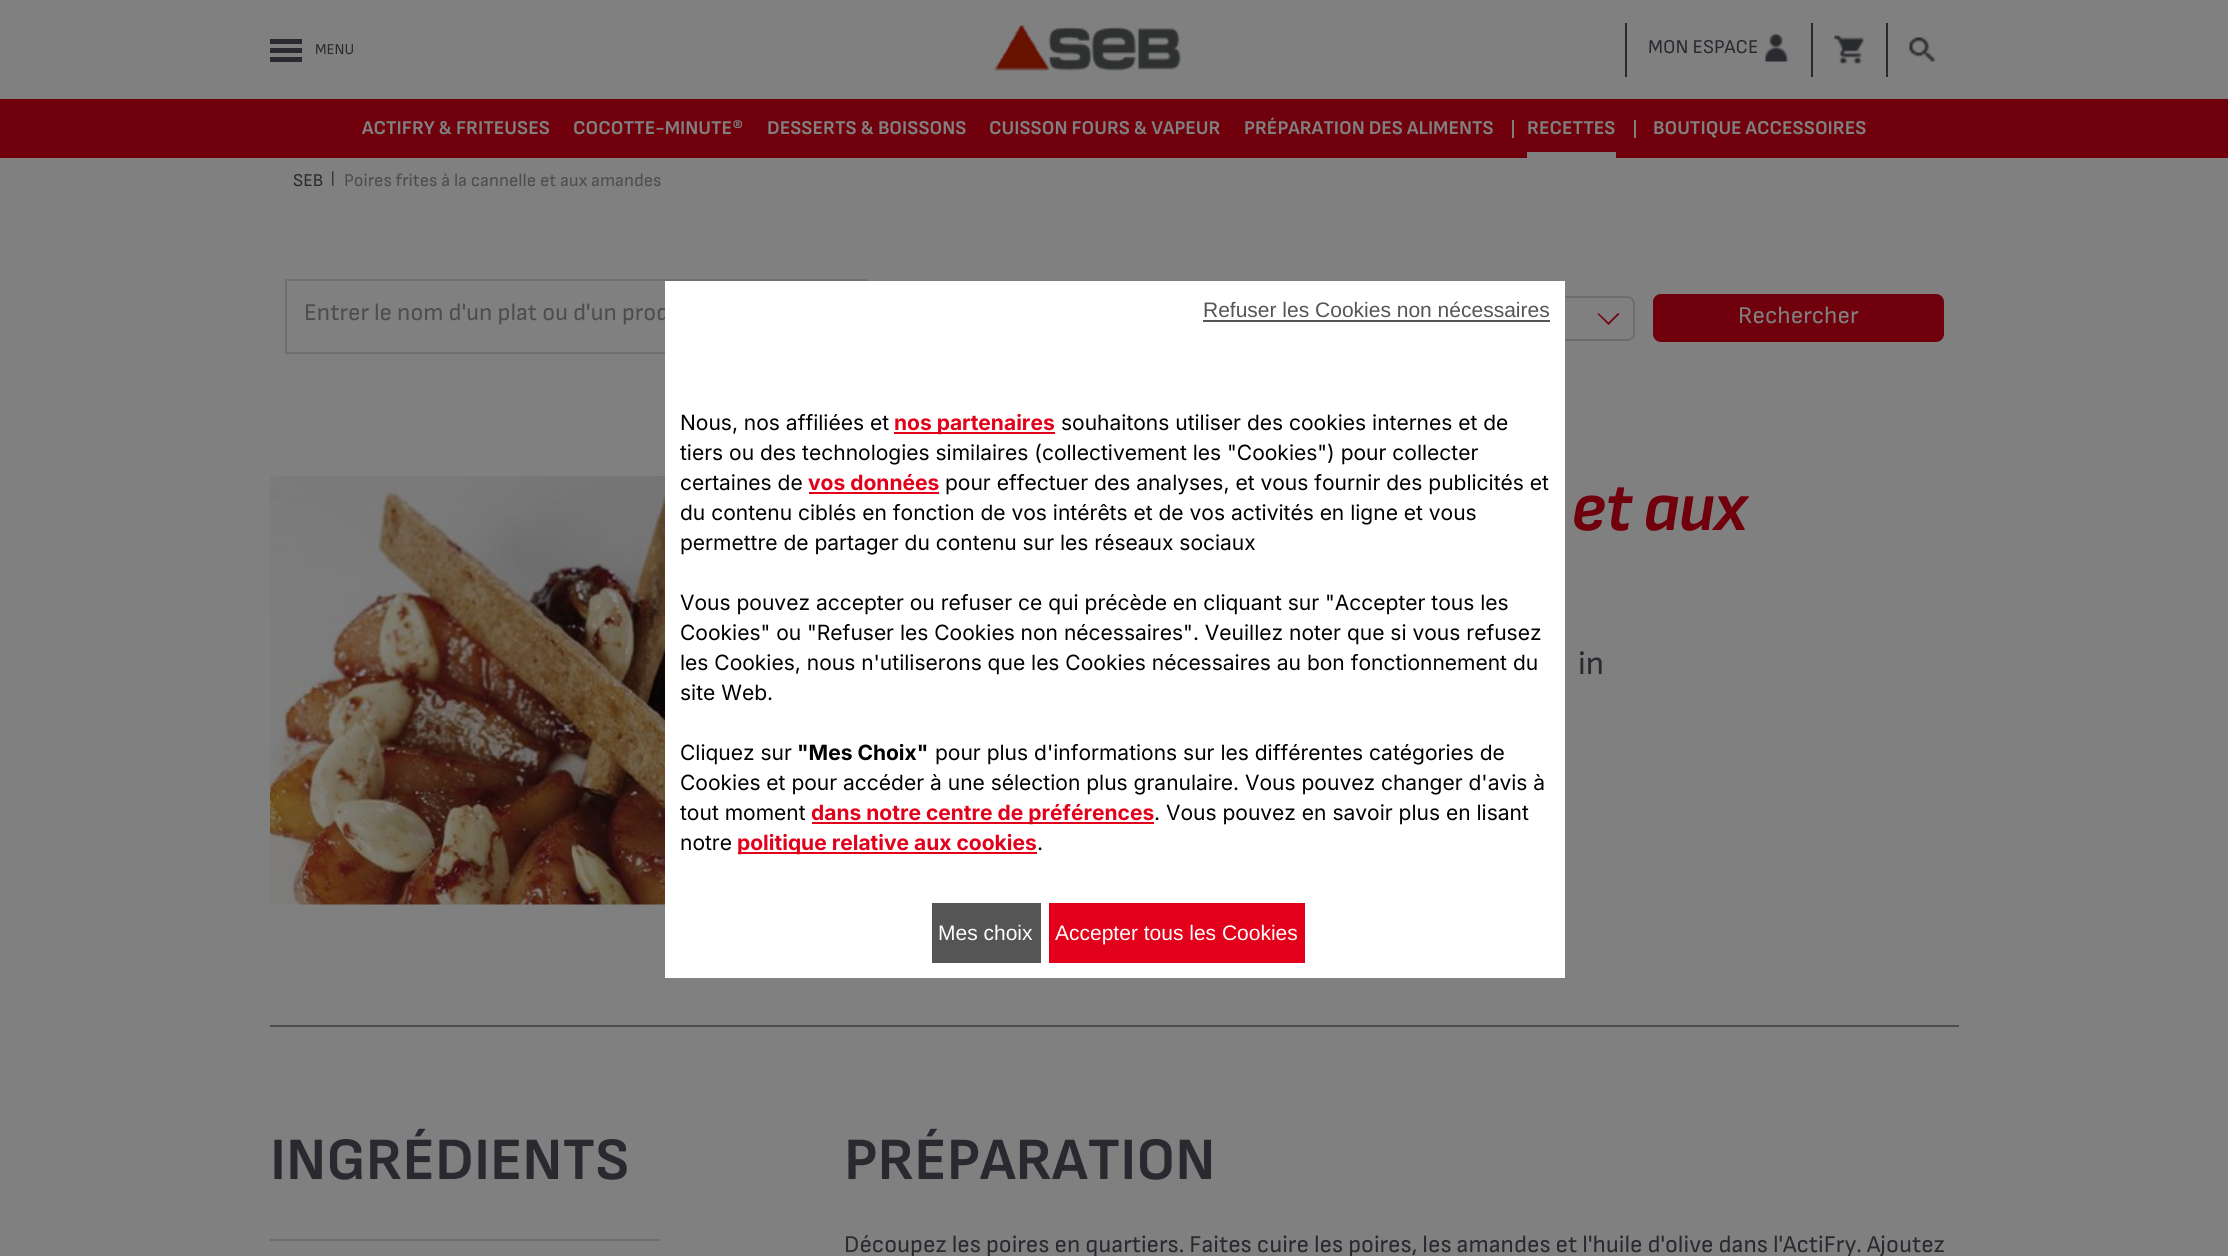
import math
import cairo

surface = cairo.ImageSurface(cairo.FORMAT_RGB24, 2228, 1256)
ctx = cairo.Context(surface)
options = cairo.FontOptions()
options.set_hint_metrics(cairo.HINT_METRICS_OFF)
options.set_hint_style(cairo.HINT_STYLE_NONE)
ctx.set_font_options(options)
ctx.set_miter_limit(4)


def set_color(code):
    ctx.set_source_rgb(*(v / 255 for v in bytes.fromhex(code[-6:])))


def draw_text(x, y, s, family, size, color, bold=False, italic=False):
    ctx.select_font_face(family, cairo.FONT_SLANT_ITALIC if italic else cairo.FONT_SLANT_NORMAL, cairo.FONT_WEIGHT_BOLD if bold else cairo.FONT_WEIGHT_NORMAL)
    ctx.set_font_size(size)
    set_color(color)
    ctx.move_to(x, y)
    ctx.show_text(s)


def draw_spaced(x, y, s, letter, word):
    ctx.move_to(x, y)
    for ch in s:
        ctx.show_text(ch)
        ctx.rel_move_to(letter + word * (ch == ' '), 0)


def fill_rect(x, y, w, h, color):
    set_color(color)
    ctx.rectangle(x, y, w, h)
    ctx.fill()


def rounded_rect(x, y, w, h, r):
    ctx.new_sub_path()
    for i, (u, v) in enumerate([(x + w - r, y + h - r), (x + r, y + h - r), (x + r, y + r), (x + w - r, y + r)]):
        ctx.arc(u, v, r, i * math.pi / 2, (i + 1) * math.pi / 2)
    ctx.close_path()


def draw_image(path, x, y, w, h):
    ctx.save()
    ctx.set_source_surface(cairo.ImageSurface.create_from_png(path), x, y)
    ctx.rectangle(x, y, w, h)
    ctx.fill()
    ctx.restore()


set_color("#808080")
ctx.paint()
fill_rect(270, 48, 32, 5, "#282a2f")
fill_rect(270, 39, 32, 5, "#282a2f")
fill_rect(270, 57, 32, 5, "#282a2f")
draw_text(315, 54, "MENU", "Sofia Sans", 15, "#282a2f")
draw_image("assets/img1.png", 994, 25, 187, 46)
fill_rect(1625, 23, 2, 54, "#282a2f")
draw_text(1648, 53, "MON ESPACE", "Sofia Sans", 19.5, "#282a2f")
draw_image("assets/img2.png", 1765, 34, 24, 28)
fill_rect(1811, 23, 2, 54, "#282a2f")
draw_image("assets/img3.png", 1834, 35, 30, 29)
fill_rect(1886, 23, 2, 54, "#282a2f")
draw_image("assets/img4.png", 1909, 37, 27, 25)
fill_rect(0, 99, 2228, 59, "#71000d")
draw_text(362, 134, "ACTIFRY & FRITEUSES", "Sofia Sans", 19.5, "#808080", bold=True)
draw_text(573, 134, "COCOTTE-MINUTE®", "Sofia Sans", 19.5, "#808080", bold=True)
draw_text(767, 134, "DESSERTS & BOISSONS", "Sofia Sans", 19.5, "#808080", bold=True)
draw_text(989, 134, "CUISSON FOURS & VAPEUR", "Sofia Sans", 19.5, "#808080", bold=True)
draw_text(1244, 134, "PRÉPARATION DES ALIMENTS", "Sofia Sans", 19.5, "#808080", bold=True)
fill_rect(1512, 120, 2, 18, "#808080")
draw_text(1527, 134, "RECETTES", "Sofia Sans", 19.5, "#808080", bold=True)
fill_rect(1527, 152, 89, 6, "#808080")
fill_rect(1634, 120, 2, 18, "#808080")
draw_text(1653, 134, "BOUTIQUE ACCESSOIRES", "Sofia Sans", 19.5, "#808080", bold=True)
draw_text(293, 186, "SEB", "Sofia Sans", 18, "#282a2f")
draw_text(331, 183, "|", "Sofia Sans", 14, "#282a2f")
draw_text(344, 186, "Poires frites à la cannelle et aux amandes", "Sofia Sans", 18, "#4d4d4d")
ctx.rectangle(286, 280, 580, 73)
set_color("#6e6f71")
ctx.stroke()
draw_text(304, 320, "Entrer le nom d'un plat ou d'un prod", "Sofia Sans", 24, "#4d4d4d")
rounded_rect(1393, 297, 241, 43, 7)
set_color("#6d6d6d")
ctx.stroke()
set_color("#730013")
ctx.new_path()
ctx.move_to(1618, 313)
ctx.line_to(1608.5, 322.5)
ctx.line_to(1598.5, 313)
ctx.line_to(1597.5, 314)
ctx.line_to(1608.5, 325)
ctx.line_to(1619.5, 314)
ctx.close_path()
ctx.fill()
set_color("#71000d")
rounded_rect(1653, 294, 291, 48, 8)
ctx.fill()
draw_text(1738, 323, "Rechercher", "Sofia Sans", 24, "#808080")
fill_rect(270, 1025, 1689, 2, "#4b4d52")
draw_image("assets/img5.png", 270, 476, 395, 429)
ctx.select_font_face("Sofia Sans", cairo.FONT_SLANT_ITALIC, cairo.FONT_WEIGHT_BOLD)
ctx.set_font_size(68.5)
set_color("#71000d")
draw_spaced(1571, 530, "et aux", -1.25, 0)
draw_text(1578, 674, "in", "Sofia Sans", 33, "#282a2f")
draw_text(270, 1179, "INGRÉDIENTS", "Sofia Sans", 60, "#282a2f", bold=True)
fill_rect(270, 1239, 390, 2, "#6d6d6d")
draw_text(844, 1179, "PRÉPARATION", "Sofia Sans", 60, "#282a2f", bold=True)
draw_text(844, 1252, "Découpez les poires en quartiers. Faites cuire les poires, les amandes et l'huile d'olive dans l'ActiFry. Ajoutez", "Sofia Sans", 24, "#282a2f")
fill_rect(665, 281, 900, 697, "#ffffff")
draw_text(1203, 317, "Refuser les Cookies non nécessaires", "Liberation Sans", 21, "#555555")
fill_rect(1203, 320, 347, 2, "#555555")
fill_rect(932, 903, 109, 60, "#555555")
draw_text(938, 940, "Mes choix", "Liberation Sans", 21, "#ffffff")
fill_rect(1049, 903, 256, 60, "#e2001a")
draw_text(1055, 940, "Accepter tous les Cookies", "Liberation Sans", 21, "#ffffff")
draw_text(680, 430, "Nous, nos affiliées et", "Inter", 21, "#000000")
fill_rect(894, 432, 161, 2, "#e2001a")
draw_text(894, 430, "nos partenaires", "Inter", 21, "#e2001a", bold=True)
draw_text(1061, 430, "souhaitons utiliser des cookies internes et de", "Inter", 21, "#000000")
draw_text(680, 460, "tiers ou des technologies similaires (collectivement les \"Cookies\") pour collecter", "Inter", 21, "#000000")
draw_text(680, 490, "certaines de", "Inter", 21, "#000000")
draw_text(808, 490, "vos données", "Inter", 21, "#e2001a", bold=True)
fill_rect(809, 492, 130, 2, "#e2001a")
draw_text(945, 490, "pour effectuer des analyses, et vous fournir des publicités et", "Inter", 21, "#000000")
draw_text(680, 520, "du contenu ciblés en fonction de vos intérêts et de vos activités en ligne et vous", "Inter", 21, "#000000")
draw_text(680, 550, "permettre de partager du contenu sur les réseaux sociaux", "Inter", 21, "#000000")
draw_text(680, 610, "Vous pouvez accepter ou refuser ce qui précède en cliquant sur \"Accepter tous les", "Inter", 21, "#000000")
draw_text(680, 640, "Cookies\" ou \"Refuser les Cookies non nécessaires\". Veuillez noter que si vous refusez", "Inter", 21, "#000000")
draw_text(680, 670, "les Cookies, nous n'utiliserons que les Cookies nécessaires au bon fonctionnement du", "Inter", 21, "#000000")
draw_text(680, 700, "site Web.", "Inter", 21, "#000000")
draw_text(680, 760, "Cliquez sur", "Inter", 21, "#000000")
draw_text(797, 760, "\"Mes Choix\"", "Inter", 21, "#000000", bold=True)
draw_text(935, 760, "pour plus d'informations sur les différentes catégories de", "Inter", 21, "#000000")
draw_text(680, 790, "Cookies et pour accéder à une sélection plus granulaire. Vous pouvez changer d'avis à", "Inter", 21, "#000000")
draw_text(680, 820, "tout moment", "Inter", 21, "#000000")
fill_rect(812, 822, 342, 2, "#e2001a")
draw_text(811, 820, "dans notre centre de préférences", "Inter", 21, "#e2001a", bold=True)
draw_text(1154, 820, ". Vous pouvez en savoir plus en lisant", "Inter", 21, "#000000")
draw_text(680, 850, "notre", "Inter", 21, "#000000")
fill_rect(738, 852, 299, 2, "#e2001a")
draw_text(737, 850, "politique relative aux cookies", "Inter", 21, "#e2001a", bold=True)
draw_text(1037, 850, ".", "Inter", 21, "#000000")
surface.write_to_png("output.png")
